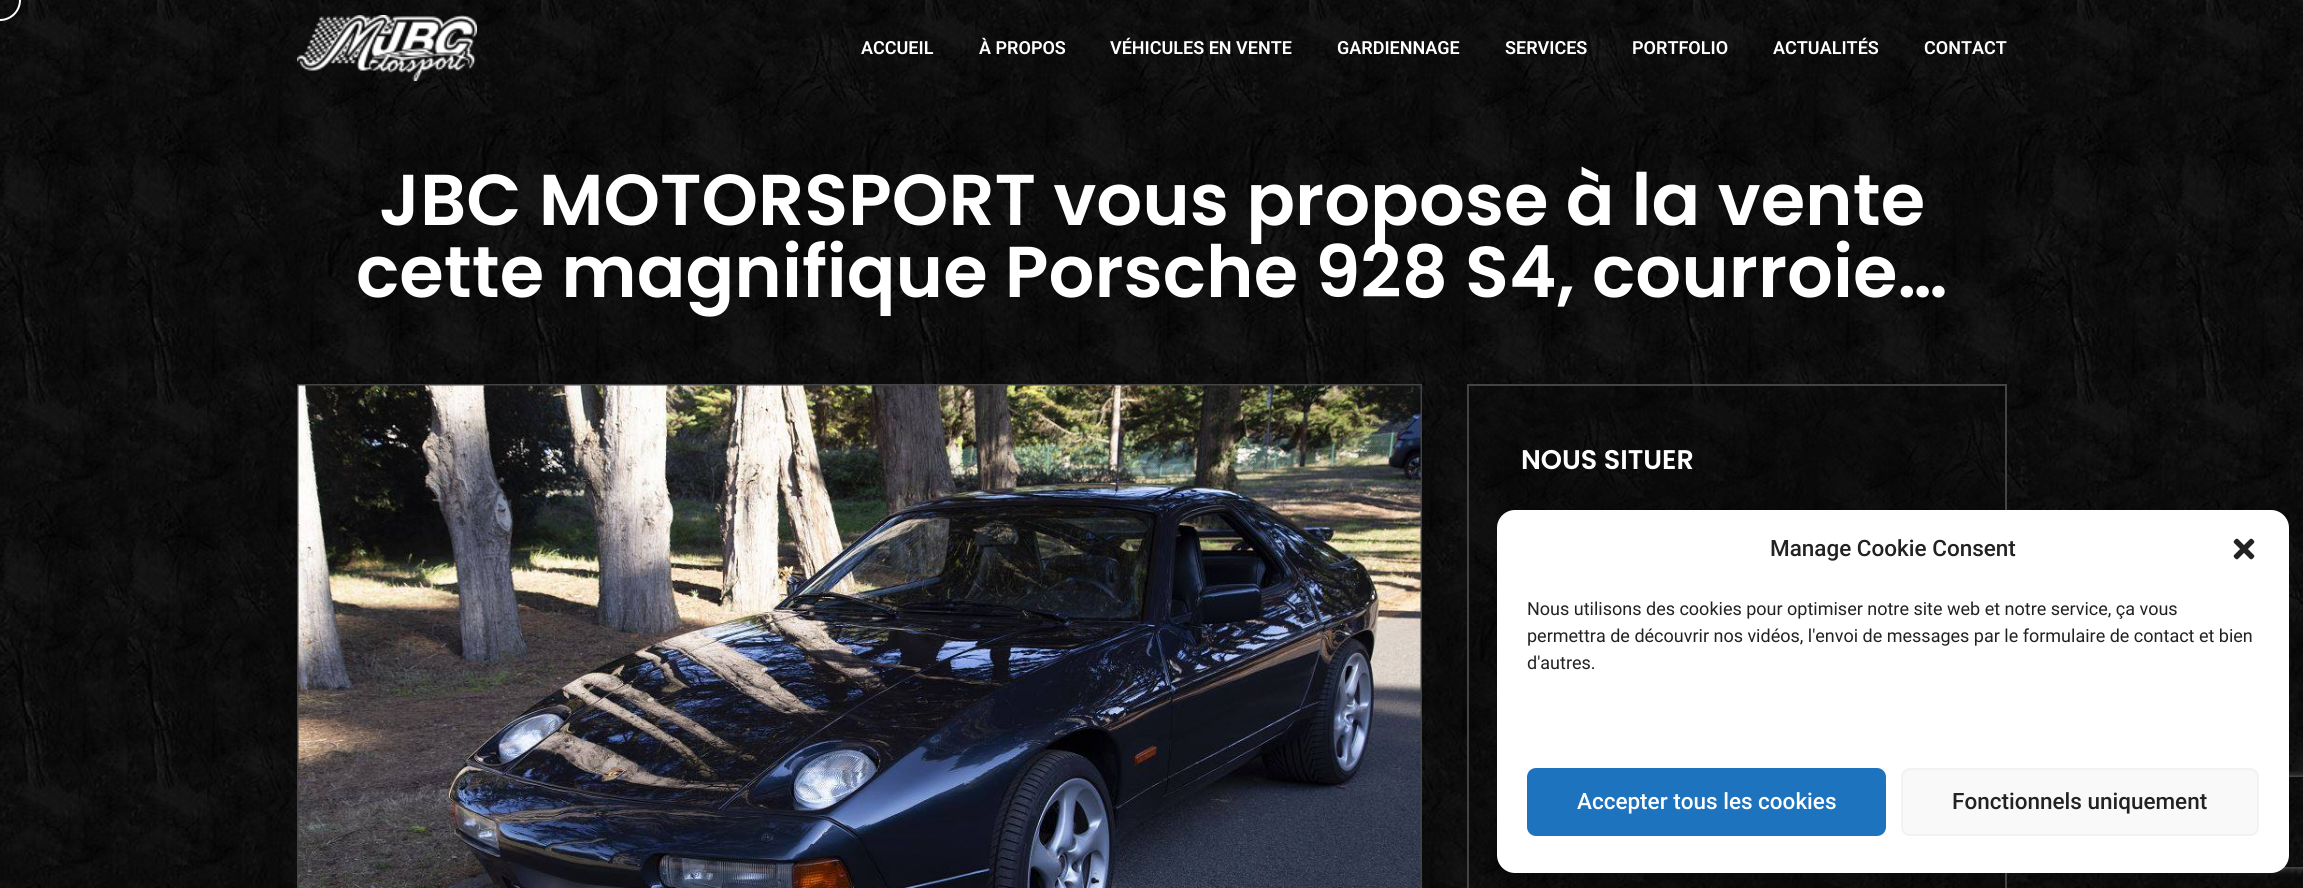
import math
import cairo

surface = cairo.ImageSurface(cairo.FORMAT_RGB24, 2303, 888)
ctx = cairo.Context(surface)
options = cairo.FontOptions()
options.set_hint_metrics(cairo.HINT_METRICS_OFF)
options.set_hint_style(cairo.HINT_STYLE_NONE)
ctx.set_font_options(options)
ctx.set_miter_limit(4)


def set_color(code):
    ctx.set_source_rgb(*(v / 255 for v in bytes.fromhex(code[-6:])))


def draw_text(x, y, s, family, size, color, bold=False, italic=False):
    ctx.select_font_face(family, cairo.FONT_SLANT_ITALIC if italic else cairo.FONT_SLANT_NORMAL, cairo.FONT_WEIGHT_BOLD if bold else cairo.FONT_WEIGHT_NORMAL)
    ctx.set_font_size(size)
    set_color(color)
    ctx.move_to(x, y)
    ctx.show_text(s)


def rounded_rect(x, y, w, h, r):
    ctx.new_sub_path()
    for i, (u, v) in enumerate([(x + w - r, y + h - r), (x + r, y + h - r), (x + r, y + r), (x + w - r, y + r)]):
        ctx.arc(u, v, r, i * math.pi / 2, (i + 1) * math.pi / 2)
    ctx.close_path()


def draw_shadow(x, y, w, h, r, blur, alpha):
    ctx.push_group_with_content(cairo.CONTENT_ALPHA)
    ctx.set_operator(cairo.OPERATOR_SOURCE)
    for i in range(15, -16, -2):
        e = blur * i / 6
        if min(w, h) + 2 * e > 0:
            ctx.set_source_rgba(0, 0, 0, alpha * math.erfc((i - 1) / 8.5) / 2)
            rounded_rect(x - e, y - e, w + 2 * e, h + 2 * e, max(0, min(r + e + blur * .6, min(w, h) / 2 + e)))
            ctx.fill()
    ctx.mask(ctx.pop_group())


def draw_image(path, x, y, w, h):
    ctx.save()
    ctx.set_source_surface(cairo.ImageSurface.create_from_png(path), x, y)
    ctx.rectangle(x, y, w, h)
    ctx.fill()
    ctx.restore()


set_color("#ffffff")
ctx.paint()
draw_image("assets/img1.png", 0, 0, 2303, 888)
ctx.arc(0, 0, 20, 0, 2 * math.pi)
set_color("#ffffff")
ctx.stroke()
draw_image("assets/img2.png", 297, 15, 180, 66)
draw_text(861, 54, "ACCUEIL", "Roboto SemiBold", 18, "#ffffff")
draw_text(979, 54, "À PROPOS", "Roboto SemiBold", 18, "#ffffff")
draw_text(1110, 54, "VÉHICULES EN VENTE", "Roboto SemiBold", 18, "#ffffff")
draw_text(1337, 54, "GARDIENNAGE", "Roboto SemiBold", 18, "#ffffff")
draw_text(1505, 54, "SERVICES", "Roboto SemiBold", 18, "#ffffff")
draw_text(1632, 54, "PORTFOLIO", "Roboto SemiBold", 18, "#ffffff")
draw_text(1773, 54, "ACTUALITÉS", "Roboto SemiBold", 18, "#ffffff")
draw_text(1924, 54, "CONTACT", "Roboto SemiBold", 18, "#ffffff")
draw_text(379, 225, "JBC MOTORSPORT vous propose à la vente", "Poppins SemiBold", 72, "#ffffff")
draw_text(356, 297, "cette magnifique Porsche 928 S4, courroie…", "Poppins SemiBold", 72, "#ffffff")
ctx.rectangle(298, 385, 1123, 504)
set_color("#444444")
ctx.stroke()
draw_image("assets/img3.png", 298, 385, 1123, 503)
ctx.set_source_rgba(0.027, 0.027, 0.027, 0.3)
ctx.rectangle(1468, 385, 538, 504)
ctx.fill_preserve()
set_color("#444444")
ctx.stroke()
draw_text(1521, 469, "NOUS SITUER", "Poppins SemiBold", 27, "#ffffff")
set_color("#000000")
draw_shadow(1521, 510, 432, 312, 5, 1, 0.5)
ctx.save()
ctx.set_fill_rule(cairo.FILL_RULE_EVEN_ODD)
ctx.new_path()
ctx.move_to(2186, 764)
ctx.line_to(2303, 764)
ctx.line_to(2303, 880)
ctx.line_to(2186, 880)
ctx.close_path()
ctx.move_to(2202, 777)
ctx.line_to(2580, 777)
ctx.curve_to(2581.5, 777, 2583, 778.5, 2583, 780)
ctx.line_to(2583, 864)
ctx.curve_to(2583, 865.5, 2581.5, 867, 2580, 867)
ctx.line_to(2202, 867)
ctx.curve_to(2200.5, 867, 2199, 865.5, 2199, 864)
ctx.line_to(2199, 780)
ctx.curve_to(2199, 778.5, 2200.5, 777, 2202, 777)
ctx.close_path()
ctx.clip()
set_color("#808080")
draw_shadow(2199, 777, 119, 90, 3, 4, 1)
ctx.restore()
set_color("#ffffff")
rounded_rect(1497, 510, 792, 363, 18)
ctx.fill()
draw_text(1770, 556, "Manage Cookie Consent", "Roboto Medium", 22.5, "#222222")
draw_image("assets/img4.png", 2233, 538, 22, 22)
draw_text(1527, 615, "Nous utilisons des cookies pour optimiser notre site web et notre service, ça vous", "Roboto", 18, "#222222")
draw_text(1527, 642, "permettra de découvrir nos vidéos, l'envoi de messages par le formulaire de contact et bien", "Roboto", 18, "#222222")
draw_text(1527, 669, "d'autres.", "Roboto", 18, "#222222")
set_color("#1e73be")
rounded_rect(1528, 769, 357, 66, 8)
ctx.fill_preserve()
ctx.stroke()
draw_text(1577, 809, "Accepter tous les cookies", "Roboto Medium", 22.5, "#ffffff")
set_color("#f9f9f9")
rounded_rect(1902, 769, 356, 66, 8)
ctx.fill_preserve()
set_color("#f2f2f2")
ctx.stroke()
draw_text(1952, 809, "Fonctionnels uniquement", "Roboto Medium", 22.5, "#222222")
surface.write_to_png("output.png")
